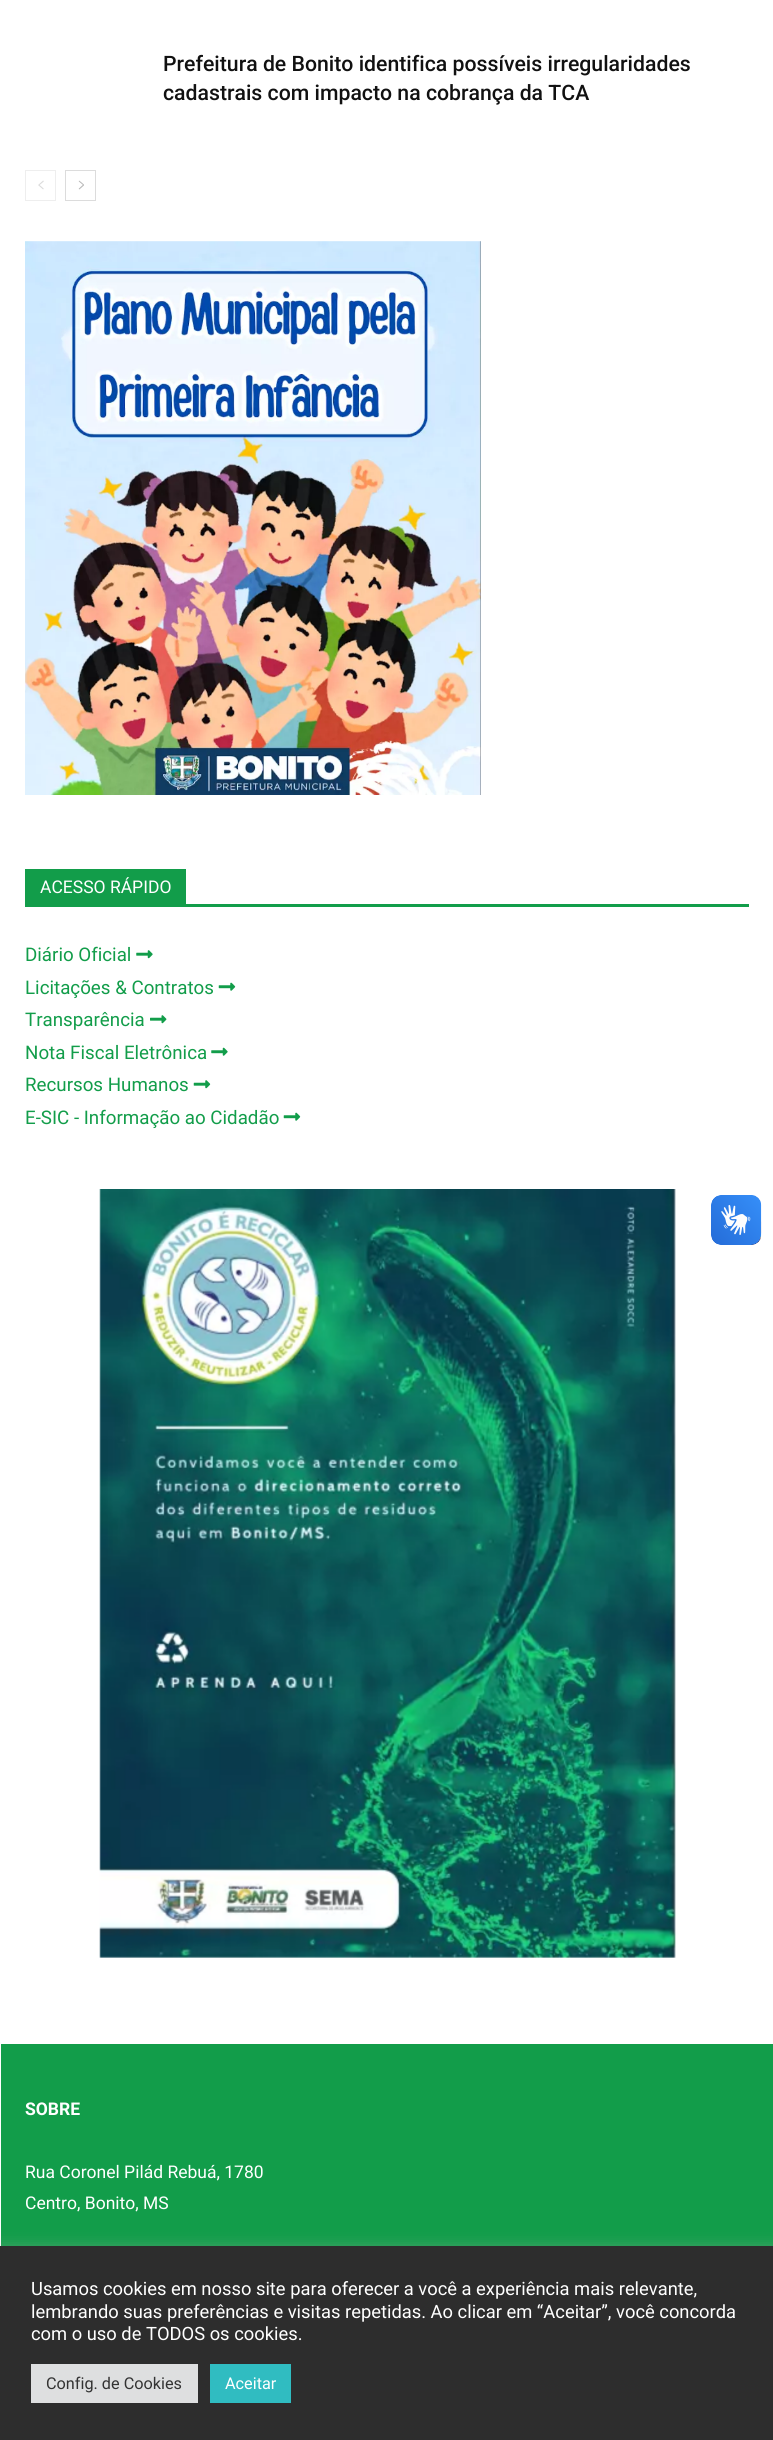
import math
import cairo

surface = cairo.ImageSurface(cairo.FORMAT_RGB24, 773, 2440)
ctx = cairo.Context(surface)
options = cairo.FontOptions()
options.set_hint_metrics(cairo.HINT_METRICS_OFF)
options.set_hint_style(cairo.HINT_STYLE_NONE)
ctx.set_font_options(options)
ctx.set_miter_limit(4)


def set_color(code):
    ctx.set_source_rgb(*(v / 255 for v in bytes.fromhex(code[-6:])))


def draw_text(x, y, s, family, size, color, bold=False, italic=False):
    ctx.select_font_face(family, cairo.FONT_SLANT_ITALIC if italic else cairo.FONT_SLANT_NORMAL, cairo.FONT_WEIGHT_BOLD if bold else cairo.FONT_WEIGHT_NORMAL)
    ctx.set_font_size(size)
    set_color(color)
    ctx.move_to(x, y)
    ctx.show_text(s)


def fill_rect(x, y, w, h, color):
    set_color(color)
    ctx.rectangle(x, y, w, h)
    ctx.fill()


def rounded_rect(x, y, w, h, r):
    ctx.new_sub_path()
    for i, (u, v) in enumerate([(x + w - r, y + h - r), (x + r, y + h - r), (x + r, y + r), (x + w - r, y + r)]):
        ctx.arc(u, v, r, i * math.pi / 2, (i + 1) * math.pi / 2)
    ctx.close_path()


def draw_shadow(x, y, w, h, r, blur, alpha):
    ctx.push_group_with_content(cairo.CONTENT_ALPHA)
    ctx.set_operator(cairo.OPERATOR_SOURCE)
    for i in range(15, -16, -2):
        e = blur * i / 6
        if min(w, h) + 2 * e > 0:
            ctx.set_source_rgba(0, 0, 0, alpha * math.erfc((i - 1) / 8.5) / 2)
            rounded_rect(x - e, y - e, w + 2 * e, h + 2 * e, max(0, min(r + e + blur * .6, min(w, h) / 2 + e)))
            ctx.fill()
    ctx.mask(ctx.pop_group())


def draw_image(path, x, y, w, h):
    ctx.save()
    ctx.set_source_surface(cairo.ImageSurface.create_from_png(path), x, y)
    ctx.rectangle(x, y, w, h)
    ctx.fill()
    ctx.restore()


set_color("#ffffff")
ctx.paint()
draw_text(163, 71, "Prefeitura de Bonito identifica possíveis irregularidades", "Roboto Medium", 21.25, "#111111")
draw_text(163, 100, "cadastrais com impacto na cobrança da TCA", "Roboto Medium", 21.25, "#111111")
ctx.rectangle(25.5, 170.5, 30, 30)
set_color("#eeeeee")
ctx.set_line_width(1)
ctx.stroke()
draw_image("assets/img1.png", 38, 180, 6, 10)
ctx.rectangle(65.5, 170.5, 30, 30)
set_color("#dcdcdc")
ctx.stroke()
draw_image("assets/img2.png", 78, 180, 6, 10)
draw_image("assets/img3.png", 25, 241, 456, 554)
fill_rect(25, 904, 724, 3, "#129d4a")
fill_rect(25, 869, 161, 35, "#129d4a")
draw_text(40, 893, "ACESSO RÁPIDO", "Roboto", 17.5, "#ffffff")
draw_text(25, 961, "Diário Oficial", "Roboto", 18.75, "#129d4a")
draw_image("assets/img4.png", 136, 950, 17, 9)
draw_text(25, 994, "Licitações & Contratos", "Roboto", 18.75, "#129d4a")
draw_image("assets/img5.png", 218, 982, 18, 9)
draw_text(25, 1026, "Transparência", "Roboto", 18.75, "#129d4a")
draw_image("assets/img6.png", 150, 1015, 17, 9)
draw_text(25, 1059, "Nota Fiscal Eletrônica", "Roboto", 18.75, "#129d4a")
draw_image("assets/img7.png", 211, 1047, 17, 9)
draw_text(25, 1091, "Recursos Humanos", "Roboto", 18.75, "#129d4a")
draw_image("assets/img8.png", 193, 1080, 18, 9)
draw_text(25, 1124, "E-SIC - Informação ao Cidadão", "Roboto", 18.75, "#129d4a")
draw_image("assets/img5.png", 283, 1112, 18, 9)
draw_image("assets/img9.png", 99, 1189, 577, 769)
fill_rect(1, 2044, 772, 202, "#129d4a")
draw_text(25, 2115, "SOBRE", "Roboto", 17.5, "#ffffff", bold=True)
draw_text(25, 2178, "Rua Coronel Pilád Rebuá, 1780", "Roboto", 17.5, "#ffffff")
draw_text(25, 2209, "Centro, Bonito, MS", "Roboto", 17.5, "#ffffff")
draw_image("assets/img10.png", 711, 1195, 51, 50)
draw_image("assets/img11.png", 711, 1195, 50, 50)
set_color("#acabab")
draw_shadow(0, 2245, 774, 194, 0, 6, 0.3)
fill_rect(0, 2246, 773, 194, "#2d2d2d")
draw_text(31, 2295, "Usamos cookies em nosso site para oferecer a você a experiência mais relevante,", "Roboto", 18.35, "#ffffff")
draw_text(31, 2318, "lembrando suas preferências e visitas repetidas. Ao clicar em “Aceitar”, você concorda", "Roboto", 18.35, "#ffffff")
draw_text(31, 2340, "com o uso de TODOS os cookies.", "Roboto", 18.35, "#ffffff")
fill_rect(31, 2364, 167, 39, "#dedfe0")
draw_text(46, 2389, "Config. de Cookies", "Roboto", 16.25, "#333333")
fill_rect(210, 2364, 81, 39, "#30bcc1")
draw_text(225, 2389, "Aceitar", "Roboto", 16.25, "#ffffff")
surface.write_to_png("output.png")
